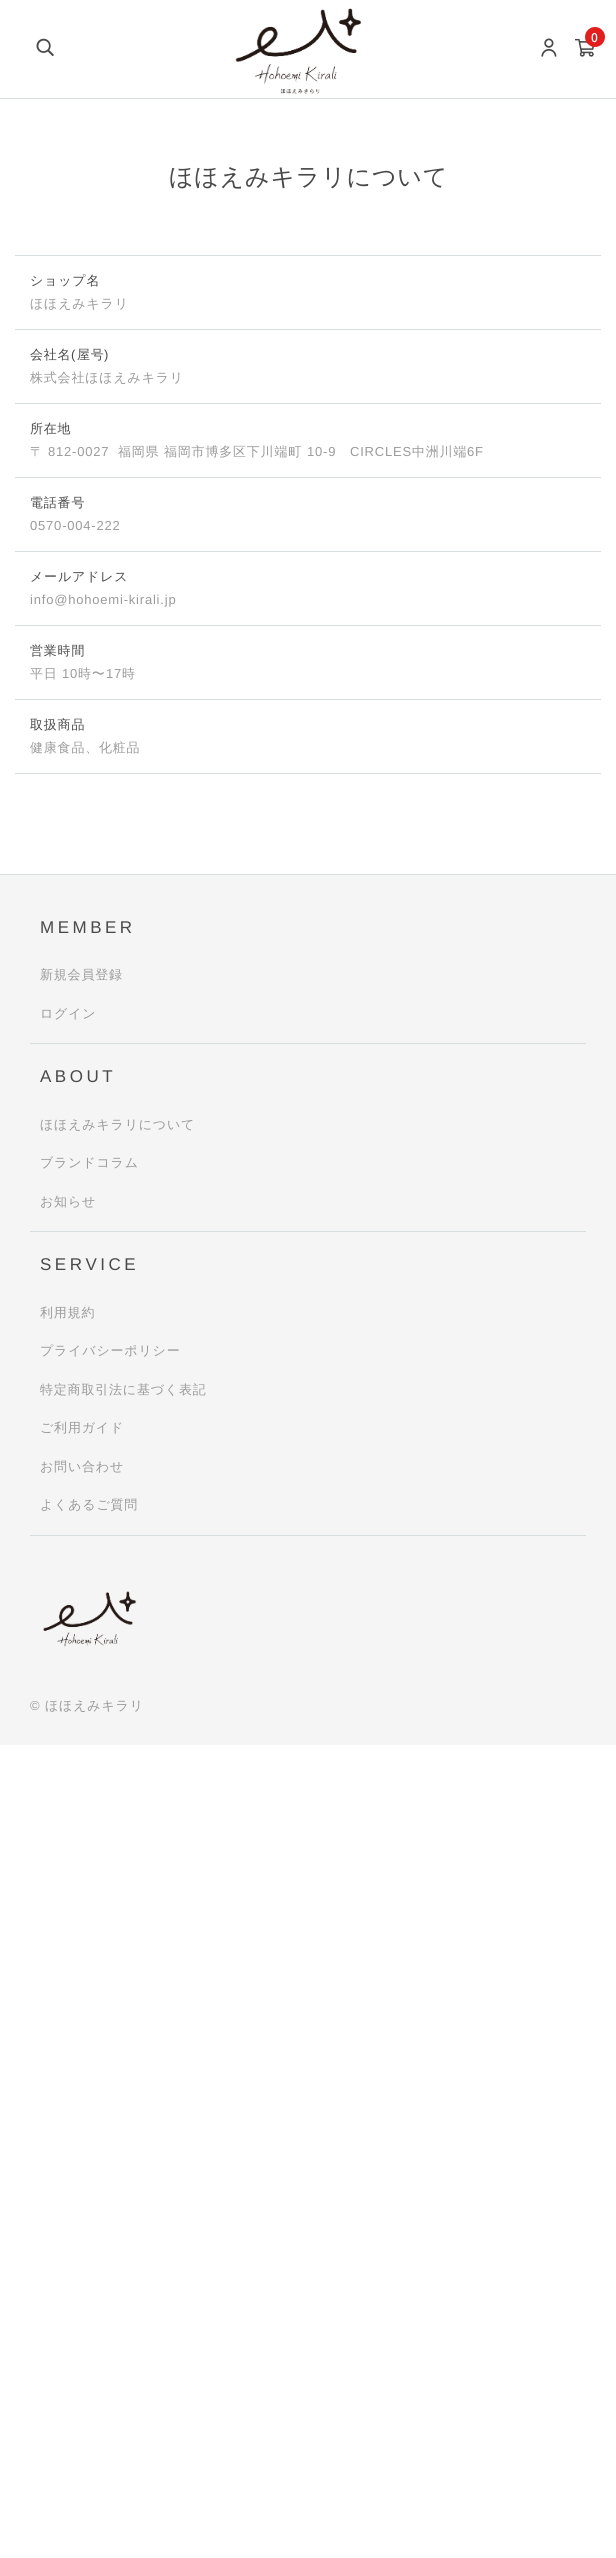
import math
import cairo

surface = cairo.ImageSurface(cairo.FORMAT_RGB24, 616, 2558)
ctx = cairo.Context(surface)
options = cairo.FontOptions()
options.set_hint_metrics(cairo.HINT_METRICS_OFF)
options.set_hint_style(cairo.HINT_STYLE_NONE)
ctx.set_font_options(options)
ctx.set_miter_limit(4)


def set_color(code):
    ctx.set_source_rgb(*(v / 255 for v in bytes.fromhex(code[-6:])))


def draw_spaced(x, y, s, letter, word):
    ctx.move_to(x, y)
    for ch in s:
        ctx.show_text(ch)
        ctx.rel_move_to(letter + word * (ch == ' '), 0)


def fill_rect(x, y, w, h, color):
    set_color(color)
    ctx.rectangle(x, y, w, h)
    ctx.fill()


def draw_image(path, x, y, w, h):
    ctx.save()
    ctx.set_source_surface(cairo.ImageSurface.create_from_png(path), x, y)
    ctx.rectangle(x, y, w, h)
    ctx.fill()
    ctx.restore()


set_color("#ffffff")
ctx.paint()
fill_rect(0, 98, 616, 1, "#d8dddf")
draw_image("assets/img1.png", 36, 38, 18, 19)
draw_image("assets/img2.png", 235, 8, 127, 86)
draw_image("assets/img3.png", 541, 38, 16, 19)
draw_image("assets/img4.png", 575, 38, 20, 19)
set_color("#e21e1e")
ctx.arc(595, 37, 10, 0, 2 * math.pi)
ctx.fill()
ctx.select_font_face("Noto Sans JP Thin")
ctx.set_font_size(12)
set_color("#ffffff")
draw_spaced(591, 42, "0", 0.8, 0)
ctx.select_font_face("WenQuanYi Zen Hei Medium")
ctx.set_font_size(24)
set_color("#494949")
draw_spaced(169, 185, "ほほえみキラリについて", 0.8, 0)
fill_rect(15, 255, 586, 1, "#d8dddf")
fill_rect(15, 329, 586, 1, "#d8dddf")
ctx.set_font_size(13)
set_color("#494949")
draw_spaced(30, 285, "ショップ名", 0.8, 0)
set_color("#9a9a9a")
draw_spaced(30, 308, "ほほえみキラリ", 0.8, 0)
fill_rect(15, 403, 586, 1, "#d8dddf")
set_color("#494949")
draw_spaced(30, 359, "会社名", 0.8, 0)
ctx.select_font_face("Liberation Sans")
draw_spaced(71, 359, "(", 0.8, 0)
ctx.select_font_face("WenQuanYi Zen Hei Medium")
draw_spaced(77, 359, "屋号", 0.8, 0)
ctx.select_font_face("Liberation Sans")
draw_spaced(104, 359, ")", 0.8, 0)
ctx.select_font_face("WenQuanYi Zen Hei Medium")
set_color("#9a9a9a")
draw_spaced(30, 382, "株式会社ほほえみキラリ", 0.8, 0)
fill_rect(15, 477, 586, 1, "#d8dddf")
set_color("#494949")
draw_spaced(30, 433, "所在地", 0.8, 0)
set_color("#9a9a9a")
draw_spaced(30, 456, "〒", 0.8, 0)
ctx.select_font_face("Liberation Sans")
draw_spaced(48, 456, "812-0027", 0.8, 0)
ctx.select_font_face("WenQuanYi Zen Hei Medium")
draw_spaced(118, 456, "福岡県", 0.8, 0)
draw_spaced(164, 456, "福岡市博多区下川端町", 0.8, 0)
ctx.select_font_face("Liberation Sans")
draw_spaced(307, 456, "10-9", 0.8, 0)
draw_spaced(350, 456, "CIRCLES", 0.8, 0)
ctx.select_font_face("WenQuanYi Zen Hei Medium")
draw_spaced(412, 456, "中洲川端", 0.8, 0)
ctx.select_font_face("Liberation Sans")
draw_spaced(467, 456, "6F", 0.8, 0)
fill_rect(15, 551, 586, 1, "#d8dddf")
ctx.select_font_face("WenQuanYi Zen Hei Medium")
set_color("#494949")
draw_spaced(30, 507, "電話番号", 0.8, 0)
ctx.select_font_face("Liberation Sans")
set_color("#9a9a9a")
draw_spaced(30, 530, "0570-004-222", 0.8, 0)
fill_rect(15, 625, 586, 1, "#d8dddf")
ctx.select_font_face("WenQuanYi Zen Hei Medium")
set_color("#494949")
draw_spaced(30, 581, "メールアドレス", 0.8, 0)
ctx.select_font_face("Liberation Sans")
set_color("#9a9a9a")
draw_spaced(30, 604, "info@hohoemi-kirali.jp", 0.8, 0)
fill_rect(15, 699, 586, 1, "#d8dddf")
ctx.select_font_face("WenQuanYi Zen Hei Medium")
set_color("#494949")
draw_spaced(30, 655, "営業時間", 0.8, 0)
set_color("#9a9a9a")
draw_spaced(30, 678, "平日", 0.8, 0)
ctx.select_font_face("Liberation Sans")
draw_spaced(62, 678, "10", 0.8, 0)
ctx.select_font_face("WenQuanYi Zen Hei Medium")
draw_spaced(78, 678, "時〜", 0.8, 0)
ctx.select_font_face("Liberation Sans")
draw_spaced(106, 678, "17", 0.8, 0)
ctx.select_font_face("WenQuanYi Zen Hei Medium")
draw_spaced(122, 678, "時", 0.8, 0)
fill_rect(15, 773, 586, 1, "#d8dddf")
set_color("#494949")
draw_spaced(30, 729, "取扱商品", 0.8, 0)
set_color("#9a9a9a")
draw_spaced(30, 752, "健康食品、化粧品", 0.8, 0)
fill_rect(0, 875, 616, 870, "#f5f5f5")
fill_rect(0, 874, 616, 1, "#d8dddf")
fill_rect(30, 1043, 556, 1, "#d8dddf")
ctx.select_font_face("Liberation Sans")
ctx.set_font_size(17)
set_color("#494949")
draw_spaced(40, 933, "MEMBER", 3.5, 0)
ctx.select_font_face("WenQuanYi Zen Hei Medium")
ctx.set_font_size(13)
set_color("#9a9a9a")
draw_spaced(40, 979, "新規会員登録", 0.8, 0)
draw_spaced(40, 1018, "ログイン", 0.8, 0)
fill_rect(30, 1231, 556, 1, "#d8dddf")
ctx.select_font_face("Liberation Sans")
ctx.set_font_size(17)
set_color("#494949")
draw_spaced(40, 1082, "ABOUT", 3.5, 0)
ctx.select_font_face("WenQuanYi Zen Hei Medium")
ctx.set_font_size(13)
set_color("#9a9a9a")
draw_spaced(40, 1129, "ほほえみキラリについて", 0.8, 0)
draw_spaced(40, 1167, "ブランドコラム", 0.8, 0)
draw_spaced(40, 1206, "お知らせ", 0.8, 0)
fill_rect(30, 1535, 556, 1, "#d8dddf")
ctx.select_font_face("Liberation Sans")
ctx.set_font_size(17)
set_color("#494949")
draw_spaced(40, 1270, "SERVICE", 3.5, 0)
ctx.select_font_face("WenQuanYi Zen Hei Medium")
ctx.set_font_size(13)
set_color("#9a9a9a")
draw_spaced(40, 1317, "利用規約", 0.8, 0)
draw_spaced(40, 1355, "プライバシーポリシー", 0.8, 0)
draw_spaced(40, 1394, "特定商取引法に基づく表記", 0.8, 0)
draw_spaced(40, 1432, "ご利用ガイド", 0.8, 0)
draw_spaced(40, 1471, "お問い合わせ", 0.8, 0)
draw_spaced(40, 1509, "よくあるご質問", 0.8, 0)
draw_image("assets/img5.png", 43, 1591, 94, 56)
ctx.select_font_face("Liberation Sans")
draw_spaced(30, 1710, "©", 0.8, 0)
ctx.select_font_face("WenQuanYi Zen Hei Medium")
draw_spaced(45, 1710, "ほほえみキラリ", 0.8, 0)
surface.write_to_png("output.png")
